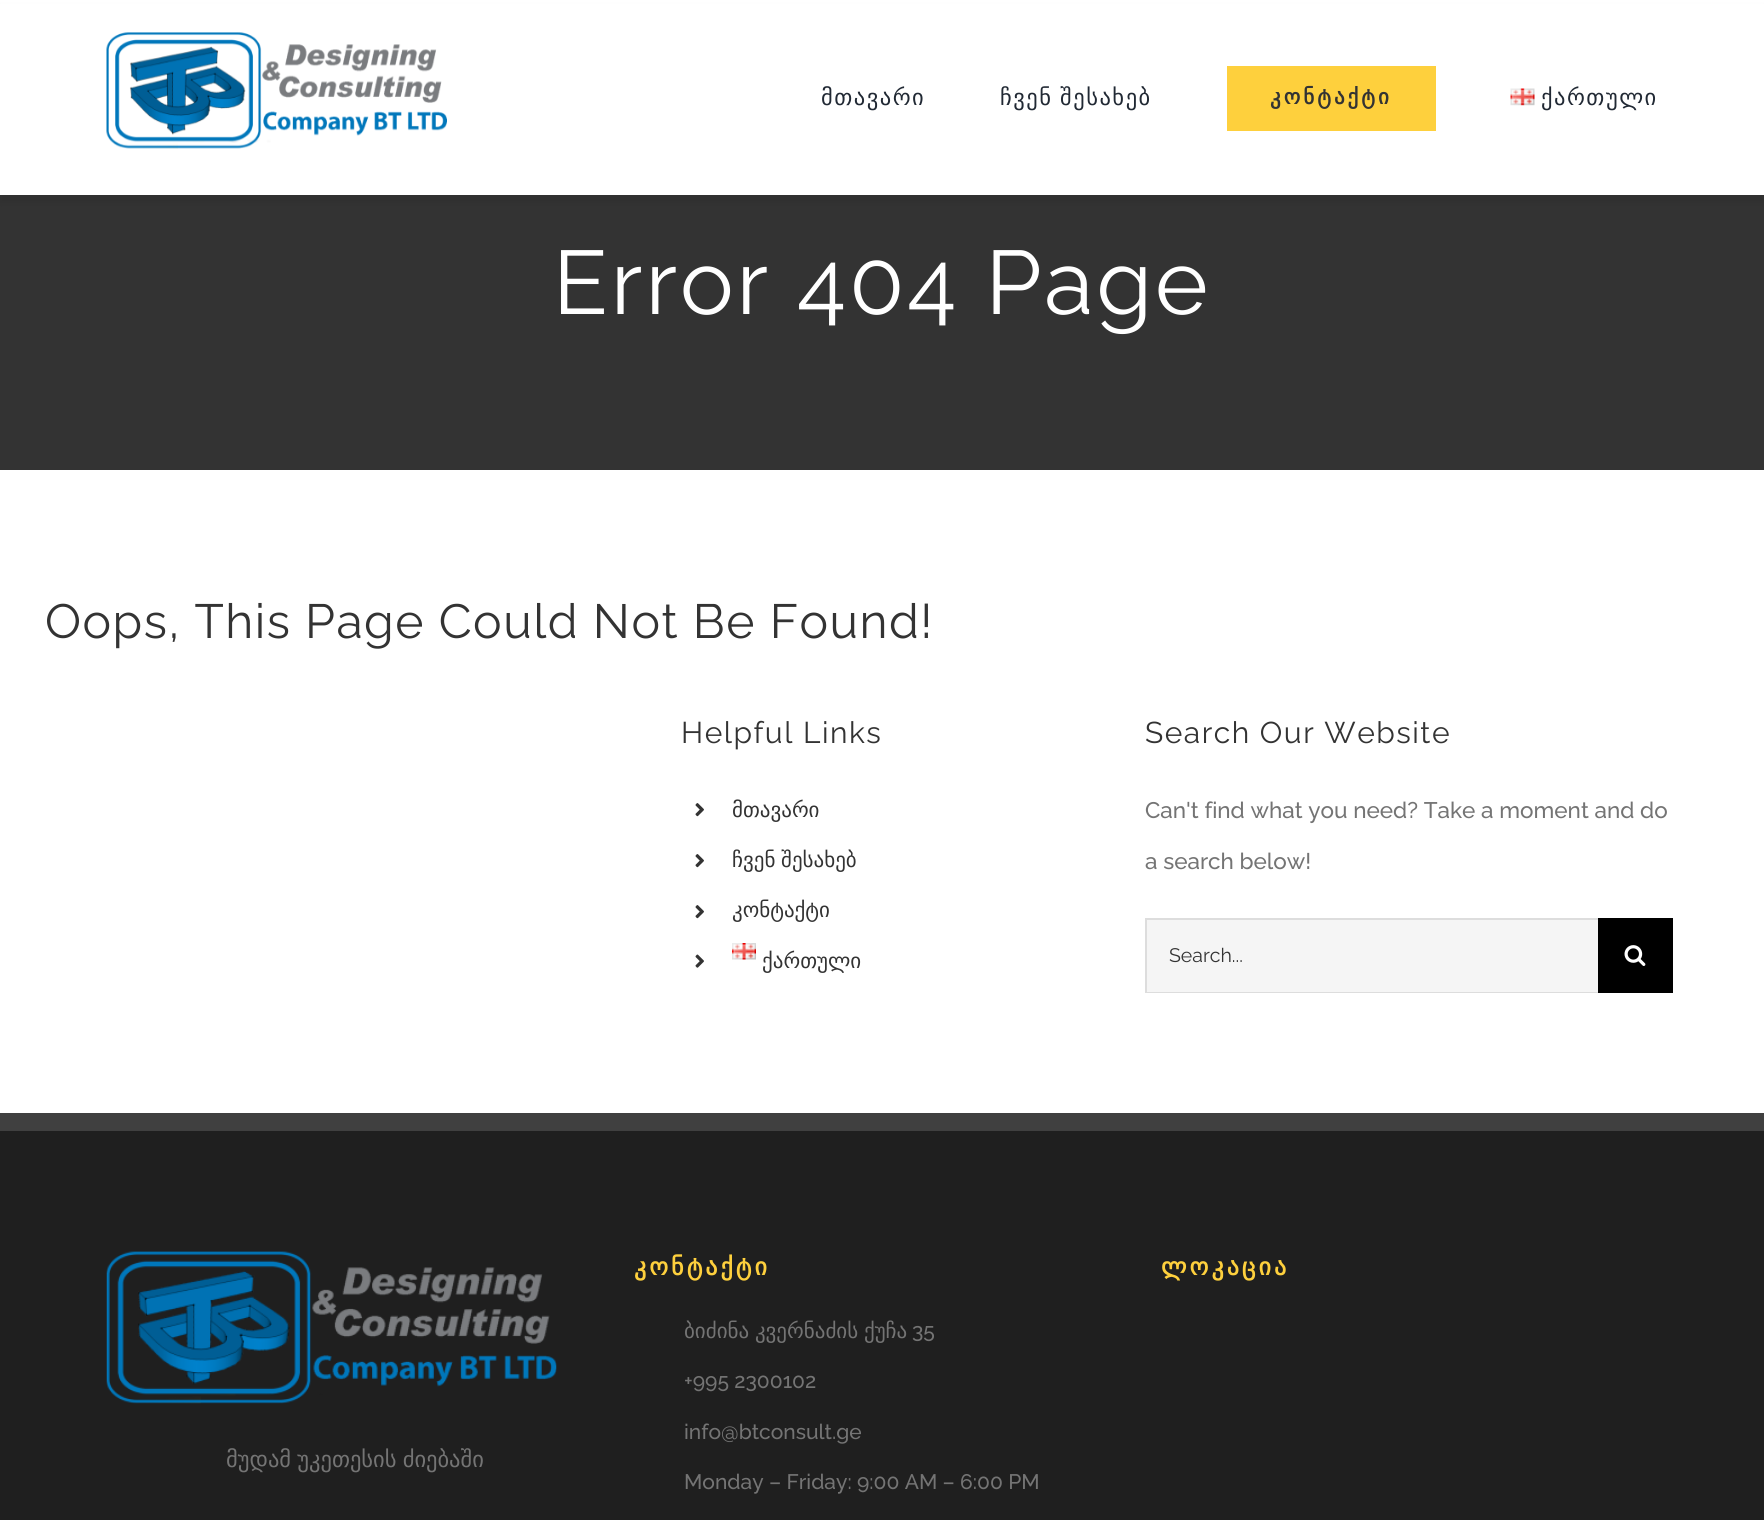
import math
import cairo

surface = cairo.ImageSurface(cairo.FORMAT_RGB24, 1764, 1520)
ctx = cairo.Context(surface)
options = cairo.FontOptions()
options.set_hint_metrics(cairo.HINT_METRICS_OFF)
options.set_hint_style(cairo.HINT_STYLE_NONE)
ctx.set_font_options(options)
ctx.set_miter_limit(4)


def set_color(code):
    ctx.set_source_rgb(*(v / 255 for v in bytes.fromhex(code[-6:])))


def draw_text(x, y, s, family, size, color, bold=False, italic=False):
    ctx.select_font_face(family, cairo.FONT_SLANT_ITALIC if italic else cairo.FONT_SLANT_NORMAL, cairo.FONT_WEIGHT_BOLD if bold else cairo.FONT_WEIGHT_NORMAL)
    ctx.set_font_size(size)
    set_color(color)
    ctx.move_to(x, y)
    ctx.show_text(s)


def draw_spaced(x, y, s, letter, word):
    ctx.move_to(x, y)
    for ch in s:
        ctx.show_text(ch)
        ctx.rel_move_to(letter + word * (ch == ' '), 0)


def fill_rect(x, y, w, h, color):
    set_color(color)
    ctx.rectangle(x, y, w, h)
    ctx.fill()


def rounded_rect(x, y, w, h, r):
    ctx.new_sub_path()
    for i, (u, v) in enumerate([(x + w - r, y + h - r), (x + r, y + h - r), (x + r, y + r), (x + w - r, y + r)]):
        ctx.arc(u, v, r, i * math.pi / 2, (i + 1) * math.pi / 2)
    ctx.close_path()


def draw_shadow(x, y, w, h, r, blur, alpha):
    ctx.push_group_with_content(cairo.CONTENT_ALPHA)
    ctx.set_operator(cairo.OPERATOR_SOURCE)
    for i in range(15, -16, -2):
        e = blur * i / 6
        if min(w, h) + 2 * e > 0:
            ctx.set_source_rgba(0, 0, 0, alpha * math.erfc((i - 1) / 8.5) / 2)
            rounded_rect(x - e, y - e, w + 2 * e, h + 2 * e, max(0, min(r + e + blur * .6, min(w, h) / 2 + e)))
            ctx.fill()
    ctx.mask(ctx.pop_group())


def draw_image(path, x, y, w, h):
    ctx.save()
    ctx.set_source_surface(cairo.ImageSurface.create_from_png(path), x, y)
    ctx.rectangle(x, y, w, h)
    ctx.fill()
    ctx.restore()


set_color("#ffffff")
ctx.paint()
fill_rect(0, 195, 1764, 275, "#333333")
set_color("#000000")
draw_shadow(0, 8, 1764, 195, 0, 4, 0.07)
fill_rect(0, 4, 1764, 191, "#ffffff")
draw_image("assets/img1.png", 106, 32, 341, 117)
ctx.select_font_face("DejaVu Sans")
ctx.set_font_size(22.5)
set_color("#212934")
draw_spaced(821, 105, "მთავარი", 1.5, 0)
draw_spaced(1000, 105, "ჩვენ შესახებ", 1.5, -1)
fill_rect(1227, 66, 209, 65, "#fed03d")
ctx.select_font_face("DejaVu Sans", cairo.FONT_SLANT_NORMAL, cairo.FONT_WEIGHT_BOLD)
ctx.set_font_size(21)
set_color("#333333")
draw_spaced(1270, 104, "კონტაქტი", 3, 0)
draw_image("assets/img2.png", 1510, 88, 25, 18)
ctx.select_font_face("DejaVu Sans")
ctx.set_font_size(22.5)
set_color("#212934")
draw_spaced(1541, 105, "ქართული", 1.5, 0)
ctx.select_font_face("Raleway")
ctx.set_font_size(90)
set_color("#ffffff")
draw_spaced(553, 314, "Error 404 Page", 3, 0)
ctx.set_font_size(48)
set_color("#333333")
draw_spaced(45, 638, "Oops, This Page Could Not Be Found!", 1.5, 0)
ctx.set_font_size(30)
draw_spaced(681, 743, "Helpful Links", 1.5, 0)
draw_image("assets/img3.png", 695, 803, 9, 14)
draw_text(732, 817, "მთავარი", "DejaVu Sans", 21, "#333333")
draw_image("assets/img3.png", 695, 854, 9, 14)
draw_spaced(732, 867, "ჩვენ შესახებ", 0, -1)
draw_image("assets/img3.png", 695, 905, 9, 14)
draw_text(732, 917, "კონტაქტი", "DejaVu Sans", 21, "#333333")
draw_image("assets/img4.png", 695, 954, 9, 14)
draw_image("assets/img5.png", 732, 943, 24, 17)
draw_text(762, 968, "ქართული", "DejaVu Sans", 21, "#333333")
ctx.select_font_face("Raleway")
ctx.set_font_size(30)
draw_spaced(1145, 743, "Search Our Website", 1.5, 0)
draw_text(1145, 818, "Can't find what you need? Take a moment and do", "Raleway Medium", 22.5, "#747474")
draw_text(1145, 869, "a search below!", "Raleway Medium", 22.5, "#747474")
fill_rect(1147, 920, 451, 72, "#f5f5f5")
fill_rect(1145, 918, 453, 2, "#dddddd")
fill_rect(1145, 992, 453, 1, "#dddddd")
fill_rect(1145, 918, 2, 75, "#dddddd")
draw_text(1169, 962, "Search...", "Raleway", 19.5, "#333333")
fill_rect(1598, 918, 75, 75, "#000000")
draw_image("assets/img6.png", 1624, 945, 22, 21)
fill_rect(0, 1131, 1764, 389, "#1f1f1f")
fill_rect(0, 1113, 1764, 18, "#404040")
ctx.select_font_face("DejaVu Sans", cairo.FONT_SLANT_NORMAL, cairo.FONT_WEIGHT_BOLD)
ctx.set_font_size(24)
set_color("#fed03d")
draw_spaced(634, 1275, "კონტაქტი", 3, 0)
ctx.select_font_face("DejaVu Sans")
ctx.set_font_size(21)
set_color("#747474")
draw_spaced(684, 1338, "ბიძინა კვერნაძის ქუჩა", 0, -1)
draw_text(912, 1338, "35", "Raleway Medium", 21, "#747474")
draw_text(684, 1388, "+995 2300102", "Raleway Medium", 21, "#747474")
draw_text(684, 1439, "info@btconsult.ge", "Raleway Medium", 21, "#747474")
draw_text(684, 1489, "Monday – Friday: 9:00 AM – 6:00 PM", "Raleway Medium", 21, "#747474")
ctx.select_font_face("DejaVu Sans", cairo.FONT_SLANT_NORMAL, cairo.FONT_WEIGHT_BOLD)
ctx.set_font_size(24)
set_color("#fed03d")
draw_spaced(1161, 1275, "ლოკაცია", 3, 0)
draw_image("assets/img7.png", 106, 1251, 451, 153)
ctx.select_font_face("DejaVu Sans")
ctx.set_font_size(22.5)
set_color("#747474")
draw_spaced(226, 1467, "მუდამ უკეთესის ძიებაში", 0, -1)
surface.write_to_png("output.png")
